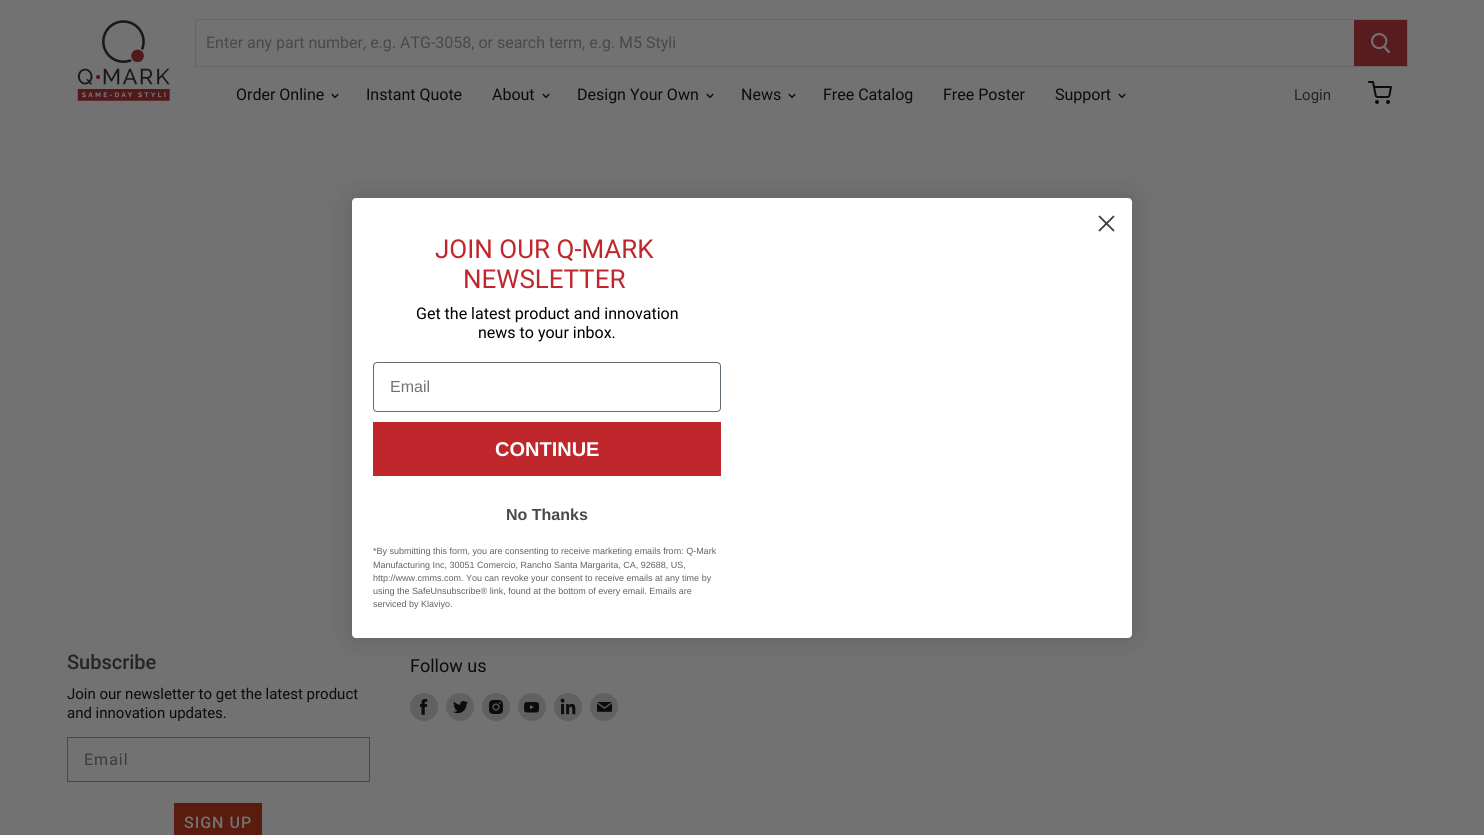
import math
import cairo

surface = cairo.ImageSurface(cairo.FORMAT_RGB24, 1484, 835)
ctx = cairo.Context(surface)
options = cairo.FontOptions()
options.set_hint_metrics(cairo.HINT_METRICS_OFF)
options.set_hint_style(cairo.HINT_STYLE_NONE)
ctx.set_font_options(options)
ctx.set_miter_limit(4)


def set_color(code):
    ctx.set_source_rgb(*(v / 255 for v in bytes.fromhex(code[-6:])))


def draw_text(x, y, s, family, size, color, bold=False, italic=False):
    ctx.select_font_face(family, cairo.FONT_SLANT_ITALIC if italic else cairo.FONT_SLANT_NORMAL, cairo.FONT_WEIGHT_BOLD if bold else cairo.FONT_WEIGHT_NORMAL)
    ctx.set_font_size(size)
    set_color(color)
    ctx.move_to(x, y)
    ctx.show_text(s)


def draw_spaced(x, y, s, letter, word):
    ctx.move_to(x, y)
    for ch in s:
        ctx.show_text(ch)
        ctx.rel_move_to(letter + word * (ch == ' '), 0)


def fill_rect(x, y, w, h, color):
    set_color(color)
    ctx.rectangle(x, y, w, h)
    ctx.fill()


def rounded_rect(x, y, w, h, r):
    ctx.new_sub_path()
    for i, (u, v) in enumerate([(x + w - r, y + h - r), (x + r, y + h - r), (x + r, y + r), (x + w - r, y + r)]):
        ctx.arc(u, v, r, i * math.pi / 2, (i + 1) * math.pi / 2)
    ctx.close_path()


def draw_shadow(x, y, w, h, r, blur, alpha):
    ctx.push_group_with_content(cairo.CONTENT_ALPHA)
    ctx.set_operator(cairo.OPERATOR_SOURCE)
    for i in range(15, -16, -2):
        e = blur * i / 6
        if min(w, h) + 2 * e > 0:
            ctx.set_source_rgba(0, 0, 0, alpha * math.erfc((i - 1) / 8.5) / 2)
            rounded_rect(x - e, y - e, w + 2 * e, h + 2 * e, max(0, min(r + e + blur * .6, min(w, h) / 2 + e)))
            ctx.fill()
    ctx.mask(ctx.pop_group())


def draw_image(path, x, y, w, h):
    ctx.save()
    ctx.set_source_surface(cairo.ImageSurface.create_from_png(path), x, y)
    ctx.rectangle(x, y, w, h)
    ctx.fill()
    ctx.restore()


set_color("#727272")
ctx.paint()
draw_image("assets/img1.png", 77, 20, 93, 81)
ctx.rectangle(195.5, 19.5, 1212, 47)
set_color("#666666")
ctx.set_line_width(1)
ctx.stroke()
draw_text(206, 48, "Enter any part number, e.g. ATG-3058, or search term, e.g. M5 Styli", "Roboto", 16, "#494949")
fill_rect(1354, 20, 53, 46, "#591c1e")
draw_image("assets/img2.png", 1371, 33, 20, 21)
draw_text(236, 100, "Order Online", "Roboto", 16, "#0c0c0c")
draw_image("assets/img3.png", 331, 93, 8, 6)
draw_text(366, 100, "Instant Quote", "Roboto", 16, "#0c0c0c")
draw_text(492, 100, "About", "Roboto", 16, "#0c0c0c")
draw_image("assets/img3.png", 542, 93, 8, 6)
draw_text(577, 100, "Design Your Own", "Roboto", 16, "#0c0c0c")
draw_image("assets/img3.png", 706, 93, 8, 6)
draw_text(741, 100, "News", "Roboto", 16, "#0c0c0c")
draw_image("assets/img3.png", 788, 93, 8, 6)
draw_text(823, 100, "Free Catalog", "Roboto", 16, "#0c0c0c")
draw_text(943, 100, "Free Poster", "Roboto", 16, "#0c0c0c")
draw_text(1055, 100, "Support", "Roboto", 16, "#0c0c0c")
draw_image("assets/img3.png", 1118, 93, 8, 6)
draw_text(1294, 100, "Login", "Roboto", 15, "#252525")
draw_image("assets/img4.png", 1368, 81, 24, 23)
set_color("#000000")
draw_shadow(352, 198, 780, 440, 4, 15, 0.15)
set_color("#ffffff")
rounded_rect(352, 198, 780, 440, 4)
ctx.fill()
ctx.new_path()
ctx.move_to(1099.5, 216.5)
ctx.line_to(1113.5, 230.5)
ctx.move_to(1099.5, 230.5)
ctx.line_to(1113.5, 216.5)
ctx.close_path()
set_color("#373f47")
ctx.set_line_width(1.8)
ctx.set_line_cap(cairo.LINE_CAP_ROUND)
ctx.set_line_join(cairo.LINE_JOIN_ROUND)
ctx.stroke()
draw_text(435, 258, "JOIN OUR Q-MARK", "Roboto", 26, "#c0272c")
draw_text(463, 288, "NEWSLETTER", "Roboto", 26, "#c0272c")
draw_text(416, 319, "Get the latest product and innovation", "Roboto", 16, "#000000")
draw_text(478, 338, "news to your inbox.", "Roboto", 16, "#000000")
rounded_rect(373.5, 362.5, 347, 49, 3.5)
set_color("#606a72")
ctx.set_line_width(1)
ctx.set_line_cap(cairo.LINE_CAP_BUTT)
ctx.set_line_join(cairo.LINE_JOIN_MITER)
ctx.stroke()
draw_text(390, 392, "Email", "Liberation Sans", 16, "#727272")
fill_rect(373, 422, 348, 54, "#c0272c")
draw_text(495, 456, "CONTINUE", "Liberation Sans", 20, "#ffffff", bold=True)
draw_text(506, 520, "No Thanks", "Liberation Sans", 16, "#494949", bold=True)
draw_text(373, 554, "*By submitting this form, you are consenting to receive marketing emails from: Q-Mark", "Liberation Sans", 9, "#616161")
draw_text(373, 568, "Manufacturing Inc, 30051 Comercio, Rancho Santa Margarita, CA, 92688, US,", "Liberation Sans", 9, "#616161")
draw_text(373, 581, "http://www.cmms.com. You can revoke your consent to receive emails at any time by", "Liberation Sans", 9, "#616161")
draw_text(373, 594, "using the SafeUnsubscribe® link, found at the bottom of every email. Emails are", "Liberation Sans", 9, "#616161")
draw_text(373, 607, "serviced by Klaviyo.", "Liberation Sans", 9, "#616161")
draw_text(67, 669, "Subscribe", "Roboto Medium", 20, "#252525")
draw_text(67, 699, "Join our newsletter to get the latest product", "Roboto", 15, "#0c0c0c")
draw_text(67, 718, "and innovation updates.", "Roboto", 15, "#0c0c0c")
ctx.rectangle(67.5, 737.5, 302, 44)
set_color("#474848")
ctx.stroke()
ctx.set_font_size(16)
set_color("#3b3b3b")
draw_spaced(84, 765, "Email", 1, 0)
fill_rect(174, 803, 88, 32, "#591c0e")
ctx.select_font_face("Roboto Medium")
set_color("#727272")
draw_spaced(184, 828, "SIGN UP", 1, 0)
draw_text(410, 672, "Follow us", "Roboto", 18, "#0c0c0c")
set_color("#616161")
ctx.new_path()
ctx.arc(424, 707, 14, 0, 2 * math.pi)
ctx.fill()
draw_image("assets/img5.png", 420, 699, 8, 16)
ctx.arc(460, 707, 14, 0, 2 * math.pi)
ctx.fill()
draw_image("assets/img6.png", 453, 701, 15, 13)
ctx.arc(496, 707, 14, 0, 2 * math.pi)
ctx.fill()
draw_image("assets/img7.png", 489, 700, 14, 14)
ctx.arc(532, 707, 14, 0, 2 * math.pi)
ctx.fill()
draw_image("assets/img8.png", 524, 702, 15, 11)
ctx.arc(568, 707, 14, 0, 2 * math.pi)
ctx.fill()
draw_image("assets/img9.png", 560, 698, 16, 17)
ctx.arc(604, 707, 14, 0, 2 * math.pi)
ctx.fill()
draw_image("assets/img10.png", 597, 702, 15, 10)
surface.write_to_png("output.png")
